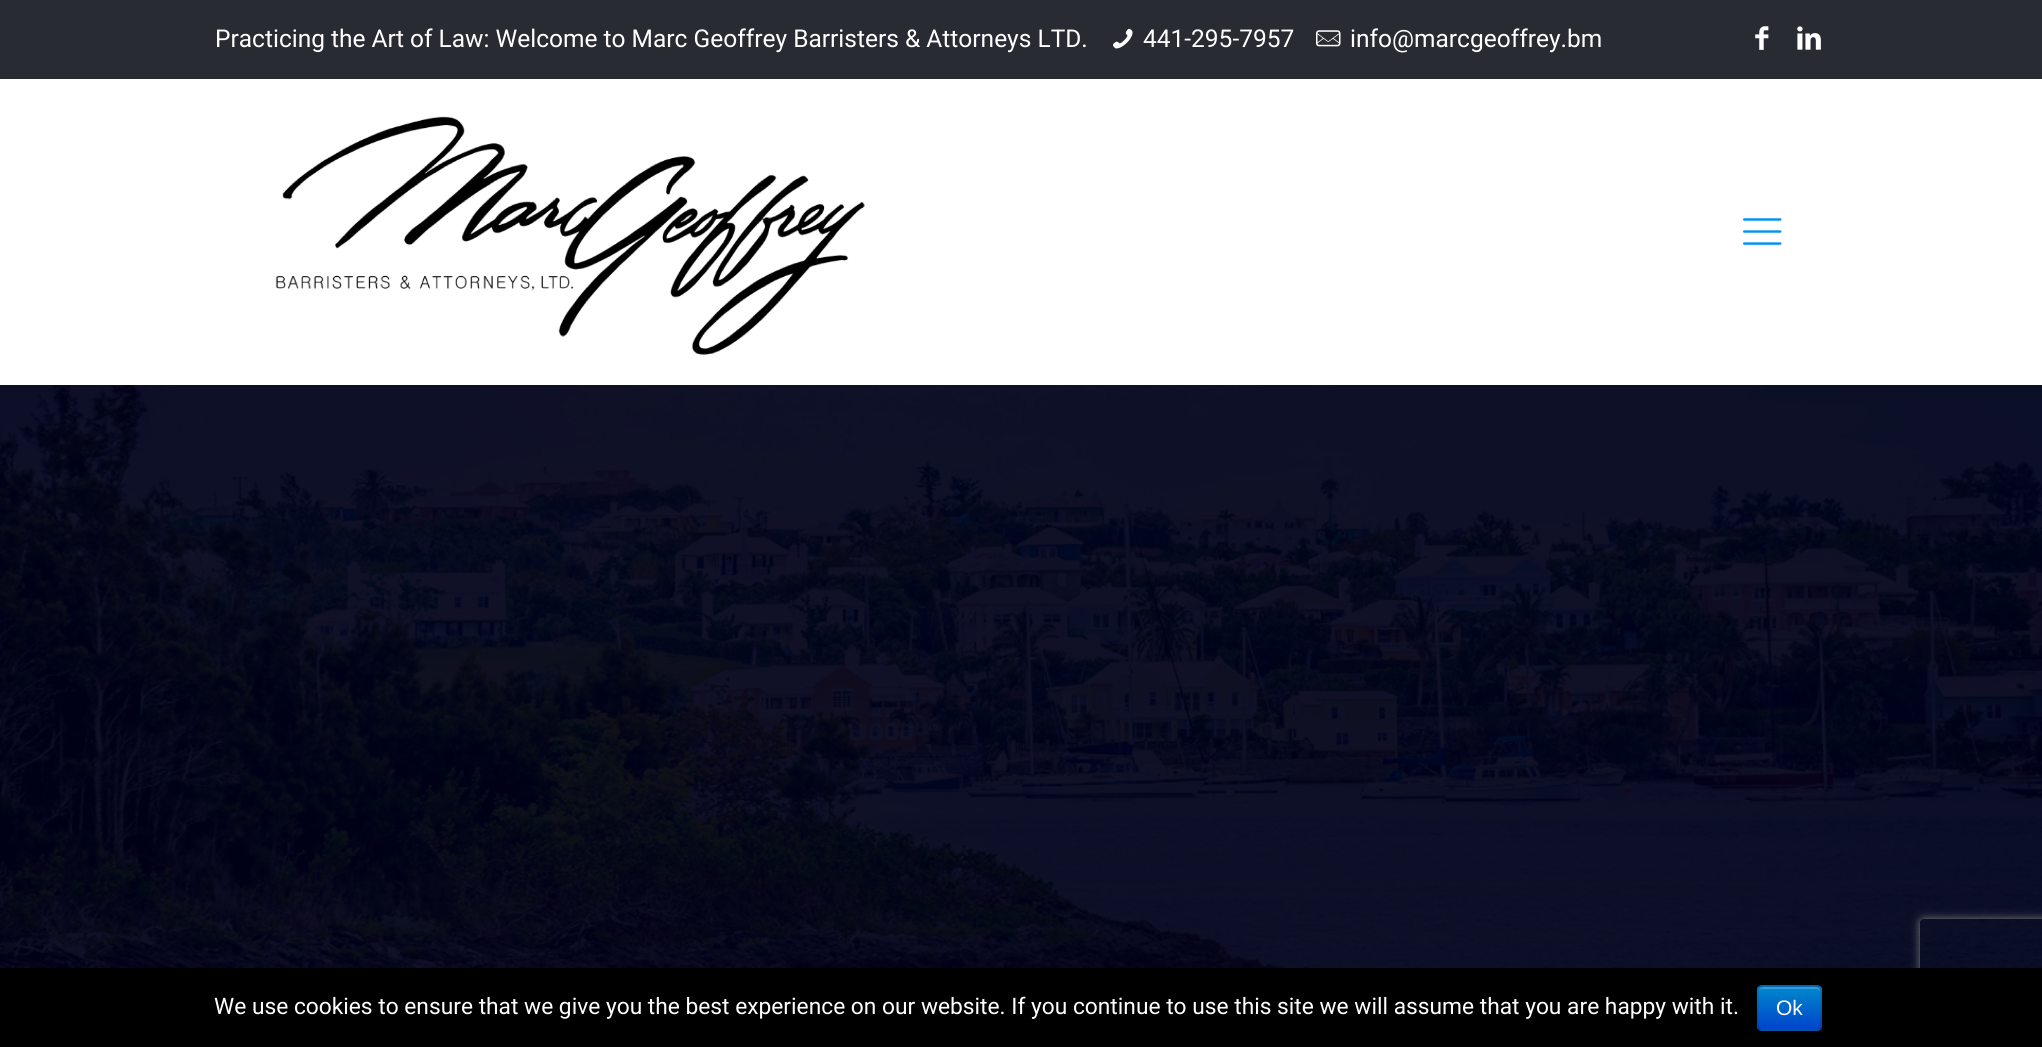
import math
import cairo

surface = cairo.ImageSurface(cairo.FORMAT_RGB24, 2042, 1047)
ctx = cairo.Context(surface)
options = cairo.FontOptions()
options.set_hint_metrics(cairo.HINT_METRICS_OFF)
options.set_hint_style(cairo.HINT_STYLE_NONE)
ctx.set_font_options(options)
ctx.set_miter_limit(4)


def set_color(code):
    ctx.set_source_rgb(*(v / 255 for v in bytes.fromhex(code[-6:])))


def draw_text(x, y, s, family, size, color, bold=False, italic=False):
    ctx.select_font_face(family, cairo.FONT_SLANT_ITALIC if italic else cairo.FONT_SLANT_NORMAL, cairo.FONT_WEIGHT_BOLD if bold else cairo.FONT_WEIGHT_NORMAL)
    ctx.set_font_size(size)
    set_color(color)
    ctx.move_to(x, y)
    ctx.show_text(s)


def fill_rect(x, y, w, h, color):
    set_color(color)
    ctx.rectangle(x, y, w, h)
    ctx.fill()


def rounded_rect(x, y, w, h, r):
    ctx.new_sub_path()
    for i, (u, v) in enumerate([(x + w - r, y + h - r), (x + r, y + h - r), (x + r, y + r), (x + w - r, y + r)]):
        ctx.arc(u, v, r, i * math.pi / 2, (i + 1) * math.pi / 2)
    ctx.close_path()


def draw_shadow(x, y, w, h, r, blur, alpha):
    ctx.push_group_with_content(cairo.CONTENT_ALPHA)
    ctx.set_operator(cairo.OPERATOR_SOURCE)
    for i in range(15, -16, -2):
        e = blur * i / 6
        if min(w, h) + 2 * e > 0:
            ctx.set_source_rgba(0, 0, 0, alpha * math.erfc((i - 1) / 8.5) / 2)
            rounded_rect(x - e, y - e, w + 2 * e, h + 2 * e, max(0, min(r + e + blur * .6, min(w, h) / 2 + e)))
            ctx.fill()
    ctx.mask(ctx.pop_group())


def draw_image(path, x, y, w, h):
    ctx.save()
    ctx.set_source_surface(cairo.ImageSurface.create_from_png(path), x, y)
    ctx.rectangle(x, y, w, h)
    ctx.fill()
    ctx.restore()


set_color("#000119")
ctx.paint()
fill_rect(0, 0, 2042, 79, "#292b33")
draw_text(215, 47, "Practicing the Art of Law: Welcome to Marc Geoffrey Barristers & Attorneys LTD.", "Roboto", 24.5, "#ffffff")
draw_image("assets/img1.png", 1113, 28, 20, 21)
draw_text(1143, 47, "441-295-7957", "Roboto", 24.5, "#ffffff")
draw_image("assets/img2.png", 1316, 30, 25, 17)
draw_text(1350, 47, "info@marcgeoffrey.bm", "Roboto", 24.5, "#ffffff")
draw_image("assets/img3.png", 1755, 26, 14, 24)
draw_image("assets/img4.png", 1797, 26, 24, 24)
fill_rect(0, 79, 2042, 306, "#ffffff")
draw_image("assets/img5.png", 275, 116, 590, 239)
draw_image("assets/img6.png", 1743, 218, 39, 27)
draw_image("assets/img7.png", 0, 385, 2042, 583)
ctx.save()
ctx.set_fill_rule(cairo.FILL_RULE_EVEN_ODD)
ctx.new_path()
ctx.move_to(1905, 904)
ctx.line_to(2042, 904)
ctx.line_to(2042, 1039)
ctx.line_to(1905, 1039)
ctx.close_path()
ctx.move_to(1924, 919)
ctx.line_to(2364, 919)
ctx.curve_to(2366, 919, 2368, 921, 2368, 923)
ctx.line_to(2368, 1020)
ctx.curve_to(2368, 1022, 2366, 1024, 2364, 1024)
ctx.line_to(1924, 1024)
ctx.curve_to(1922, 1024, 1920, 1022, 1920, 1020)
ctx.line_to(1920, 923)
ctx.curve_to(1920, 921, 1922, 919, 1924, 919)
ctx.close_path()
ctx.clip()
set_color("#808080")
draw_shadow(1920, 919, 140, 105, 4, 4.5, 1)
ctx.restore()
fill_rect(0, 968, 2042, 79, "#000000")
draw_text(214, 1014, "We use cookies to ensure that we give you the best experience on our website. If you continue to use this site we will assume that you are happy with it.", "Roboto", 22.75, "#ffffff")
set_color("#006dcc")
rounded_rect(1757, 985, 65, 46, 5)
ctx.fill()
ctx.save()
rounded_rect(1757, 985, 65, 46, 5)
ctx.clip()
gradient = cairo.LinearGradient(1789, 987, 1789, 1029)
gradient.add_color_stop_rgba(0, 0, 0.533, 0.8, 1)
gradient.add_color_stop_rgba(1, 0, 0.267, 0.8, 1)
ctx.set_source(gradient)
ctx.rectangle(1757, 987, 65, 42)
ctx.fill()
ctx.restore()
ctx.set_source_rgba(1, 1, 1, 0.2)
ctx.new_path()
ctx.move_to(1762, 989)
ctx.line_to(1816, 989)
ctx.curve_to(1818, 989, 1820, 990, 1820, 992)
ctx.curve_to(1820, 985, 1812, 987, 1807, 987)
ctx.line_to(1772, 987)
ctx.curve_to(1767, 987, 1759, 985, 1759, 992)
ctx.curve_to(1759, 990, 1760, 989, 1762, 989)
ctx.close_path()
ctx.fill()
ctx.new_path()
ctx.move_to(1819.5, 1028.5)
ctx.curve_to(1819, 1029.5, 1817.5, 1030, 1816.5, 1030)
ctx.line_to(1762, 1030)
ctx.curve_to(1761, 1030, 1760, 1029.5, 1759, 1028.5)
ctx.set_source_rgba(0, 0, 0, 0.25)
ctx.set_line_width(1.8)
ctx.stroke()
ctx.new_path()
ctx.move_to(1759, 1028.5)
ctx.curve_to(1758.5, 1028, 1758, 1026.5, 1758, 1025.5)
ctx.line_to(1758, 990.5)
ctx.curve_to(1758, 989.5, 1758.5, 988, 1759, 987.5)
ctx.curve_to(1760, 986.5, 1761, 986, 1762, 986)
ctx.line_to(1816.5, 986)
ctx.curve_to(1817.5, 986, 1819, 986.5, 1819.5, 987.5)
ctx.curve_to(1820.5, 988, 1821, 989.5, 1821, 990.5)
ctx.line_to(1821, 1025.5)
ctx.curve_to(1821, 1026.5, 1820.5, 1028, 1819.5, 1028.5)
ctx.set_source_rgba(0, 0, 0, 0.1)
ctx.stroke()
draw_text(1776, 1015, "Ok", "Liberation Sans", 21, "#ffffff")
surface.write_to_png("output.png")
